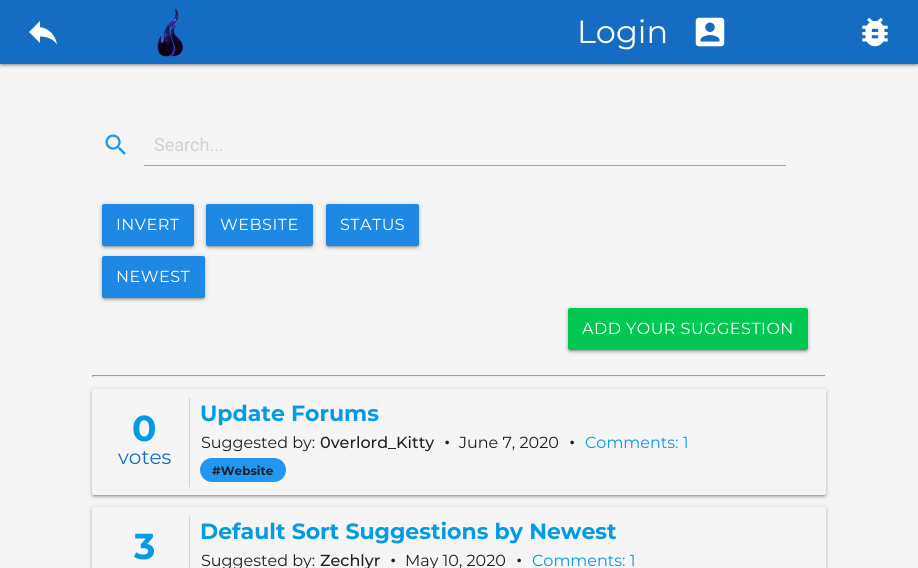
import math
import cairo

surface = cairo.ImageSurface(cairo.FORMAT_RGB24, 918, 568)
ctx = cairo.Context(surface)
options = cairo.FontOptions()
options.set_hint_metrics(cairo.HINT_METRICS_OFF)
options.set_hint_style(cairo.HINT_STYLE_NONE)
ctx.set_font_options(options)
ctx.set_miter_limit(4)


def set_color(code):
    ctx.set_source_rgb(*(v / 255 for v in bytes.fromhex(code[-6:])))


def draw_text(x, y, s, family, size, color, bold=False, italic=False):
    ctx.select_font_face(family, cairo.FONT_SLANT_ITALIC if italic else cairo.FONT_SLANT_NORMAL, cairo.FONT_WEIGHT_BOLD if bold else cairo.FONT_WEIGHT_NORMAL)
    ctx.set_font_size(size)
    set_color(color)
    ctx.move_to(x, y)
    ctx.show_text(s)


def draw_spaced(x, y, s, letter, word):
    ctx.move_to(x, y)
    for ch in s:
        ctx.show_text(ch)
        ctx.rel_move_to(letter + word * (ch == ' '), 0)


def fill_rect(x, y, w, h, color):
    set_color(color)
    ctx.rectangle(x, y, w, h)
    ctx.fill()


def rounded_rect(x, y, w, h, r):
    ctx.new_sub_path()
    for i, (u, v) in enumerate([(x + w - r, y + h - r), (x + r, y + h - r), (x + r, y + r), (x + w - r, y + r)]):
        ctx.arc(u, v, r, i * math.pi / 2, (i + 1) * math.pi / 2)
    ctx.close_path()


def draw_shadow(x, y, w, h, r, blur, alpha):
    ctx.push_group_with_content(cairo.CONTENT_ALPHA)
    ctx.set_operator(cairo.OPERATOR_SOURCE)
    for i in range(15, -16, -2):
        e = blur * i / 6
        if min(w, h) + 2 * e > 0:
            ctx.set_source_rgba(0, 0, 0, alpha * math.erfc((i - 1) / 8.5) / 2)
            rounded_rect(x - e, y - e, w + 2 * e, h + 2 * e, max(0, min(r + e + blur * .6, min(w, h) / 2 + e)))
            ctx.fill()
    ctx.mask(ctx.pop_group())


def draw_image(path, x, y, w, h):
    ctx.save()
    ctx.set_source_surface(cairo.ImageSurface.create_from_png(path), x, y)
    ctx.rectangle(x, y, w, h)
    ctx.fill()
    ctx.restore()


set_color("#f5f5f5")
ctx.paint()
set_color("#000000")
draw_shadow(0, 1, 918, 64, 0, 2.5, 0.2)
draw_shadow(2, 5, 914, 60, 0, 0.5, 0.12)
draw_shadow(0, 2, 918, 64, 0, 1, 0.14)
fill_rect(0, 0, 918, 64, "#156cc3")
set_color("#ffffff")
ctx.new_path()
ctx.move_to(40, 27)
ctx.curve_to(49.5, 28.5, 55.5, 35.5, 57, 44.5)
ctx.curve_to(53.5, 39.5, 47.5, 36.5, 40, 36.5)
ctx.line_to(40, 43)
ctx.line_to(29, 32)
ctx.line_to(40, 21)
ctx.close_path()
ctx.fill()
draw_image("assets/img1.png", 157, 8, 26, 49)
draw_text(577, 43, "Login", "Montserrat", 32, "#ffffff")
draw_image("assets/img2.png", 695, 17, 30, 30)
draw_image("assets/img3.png", 862, 17, 26, 30)
draw_image("assets/img4.png", 105, 134, 21, 21)
fill_rect(144, 165, 642, 1, "#9e9e9e")
draw_text(154, 151, "Search...", "Roboto", 18, "#d1d1d1")
set_color("#000000")
draw_shadow(102, 205, 92, 42, 2, 2.5, 0.2)
draw_shadow(104, 209, 88, 38, 0, 0.5, 0.12)
draw_shadow(102, 206, 92, 42, 2, 1, 0.14)
set_color("#1e88e5")
rounded_rect(102, 204, 92, 42, 2)
ctx.fill()
ctx.select_font_face("Montserrat")
ctx.set_font_size(16)
set_color("#ffffff")
draw_spaced(116, 230, "INVERT", 0.5, 0)
set_color("#000000")
draw_shadow(206, 205, 107, 42, 2, 2.5, 0.2)
draw_shadow(208, 209, 103, 38, 0, 0.5, 0.12)
draw_shadow(206, 206, 107, 42, 2, 1, 0.14)
set_color("#1e88e5")
rounded_rect(206, 204, 107, 42, 2)
ctx.fill()
set_color("#ffffff")
draw_spaced(220, 230, "WEBSITE", 0.5, 0)
set_color("#000000")
draw_shadow(326, 205, 93, 42, 2, 2.5, 0.2)
draw_shadow(328, 209, 89, 38, 0, 0.5, 0.12)
draw_shadow(326, 206, 93, 42, 2, 1, 0.14)
set_color("#1e88e5")
rounded_rect(326, 204, 93, 42, 2)
ctx.fill()
set_color("#ffffff")
draw_spaced(340, 230, "STATUS", 0.5, 0)
set_color("#000000")
draw_shadow(102, 257, 103, 42, 2, 2.5, 0.2)
draw_shadow(104, 261, 99, 38, 0, 0.5, 0.12)
draw_shadow(102, 258, 103, 42, 2, 1, 0.14)
set_color("#1e88e5")
rounded_rect(102, 256, 103, 42, 2)
ctx.fill()
set_color("#ffffff")
draw_spaced(116, 282, "NEWEST", 0.5, 0)
set_color("#000000")
draw_shadow(568, 309, 240, 42, 2, 2.5, 0.2)
draw_shadow(570, 313, 236, 38, 0, 0.5, 0.12)
draw_shadow(568, 310, 240, 42, 2, 1, 0.14)
set_color("#00c853")
rounded_rect(568, 308, 240, 42, 2)
ctx.fill()
set_color("#ffffff")
draw_spaced(582, 334, "ADD YOUR SUGGESTION", 0.5, 0)
fill_rect(92, 375, 734, 1, "#9f9f9f")
fill_rect(825, 375, 1, 2, "#eeeeee")
fill_rect(92, 376, 734, 1, "#eeeeee")
fill_rect(92, 375, 1, 2, "#9f9f9f")
set_color("#000000")
draw_shadow(92, 390, 734, 106, 2, 2.5, 0.2)
draw_shadow(94, 394, 730, 102, 0, 0.5, 0.12)
draw_shadow(92, 391, 734, 106, 2, 1, 0.14)
set_color("#f5f5f5")
rounded_rect(92, 389, 734, 106, 2)
ctx.fill()
fill_rect(189, 398, 1, 89, "#d3d3d3")
draw_text(132, 441, "0", "Montserrat", 36, "#039be5", bold=True)
draw_text(118, 464, "votes", "Montserrat", 20, "#156cc3")
draw_text(200, 421, "Update Forums", "Montserrat", 22, "#039be5", bold=True)
draw_text(201, 448, "Suggested by:", "Montserrat", 16, "#202020")
draw_text(320, 448, "0verlord_Kitty", "Montserrat Medium", 16, "#202020")
draw_text(444, 448, "•", "Montserrat Medium", 20, "#202020")
draw_text(459, 448, "June 7, 2020", "Montserrat", 16, "#202020")
draw_text(569, 448, "•", "Montserrat Medium", 20, "#202020")
draw_text(585, 448, "Comments: 1", "Montserrat", 16, "#039be5")
set_color("#2196f3")
rounded_rect(200, 458, 86, 24, 12)
ctx.fill()
draw_text(212, 475, "#Website", "Montserrat", 12, "#202020", bold=True)
set_color("#000000")
draw_shadow(92, 508, 734, 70, 2, 2.5, 0.2)
draw_shadow(92, 509, 734, 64, 2, 1, 0.14)
set_color("#f5f5f5")
rounded_rect(92, 507, 734, 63, 2)
ctx.fill()
fill_rect(189, 516, 1, 52, "#d3d3d3")
draw_text(134, 559, "3", "Montserrat", 36, "#039be5", bold=True)
draw_text(200, 539, "Default Sort Suggestions by Newest", "Montserrat", 22, "#039be5", bold=True)
draw_text(201, 566, "Suggested by:", "Montserrat", 16, "#202020")
draw_text(320, 566, "Zechlyr", "Montserrat Medium", 16, "#202020")
draw_text(390, 566, "•", "Montserrat Medium", 20, "#202020")
draw_text(405, 566, "May 10, 2020", "Montserrat", 16, "#202020")
draw_text(516, 566, "•", "Montserrat Medium", 20, "#202020")
draw_text(532, 566, "Comments: 1", "Montserrat", 16, "#039be5")
surface.write_to_png("output.png")
